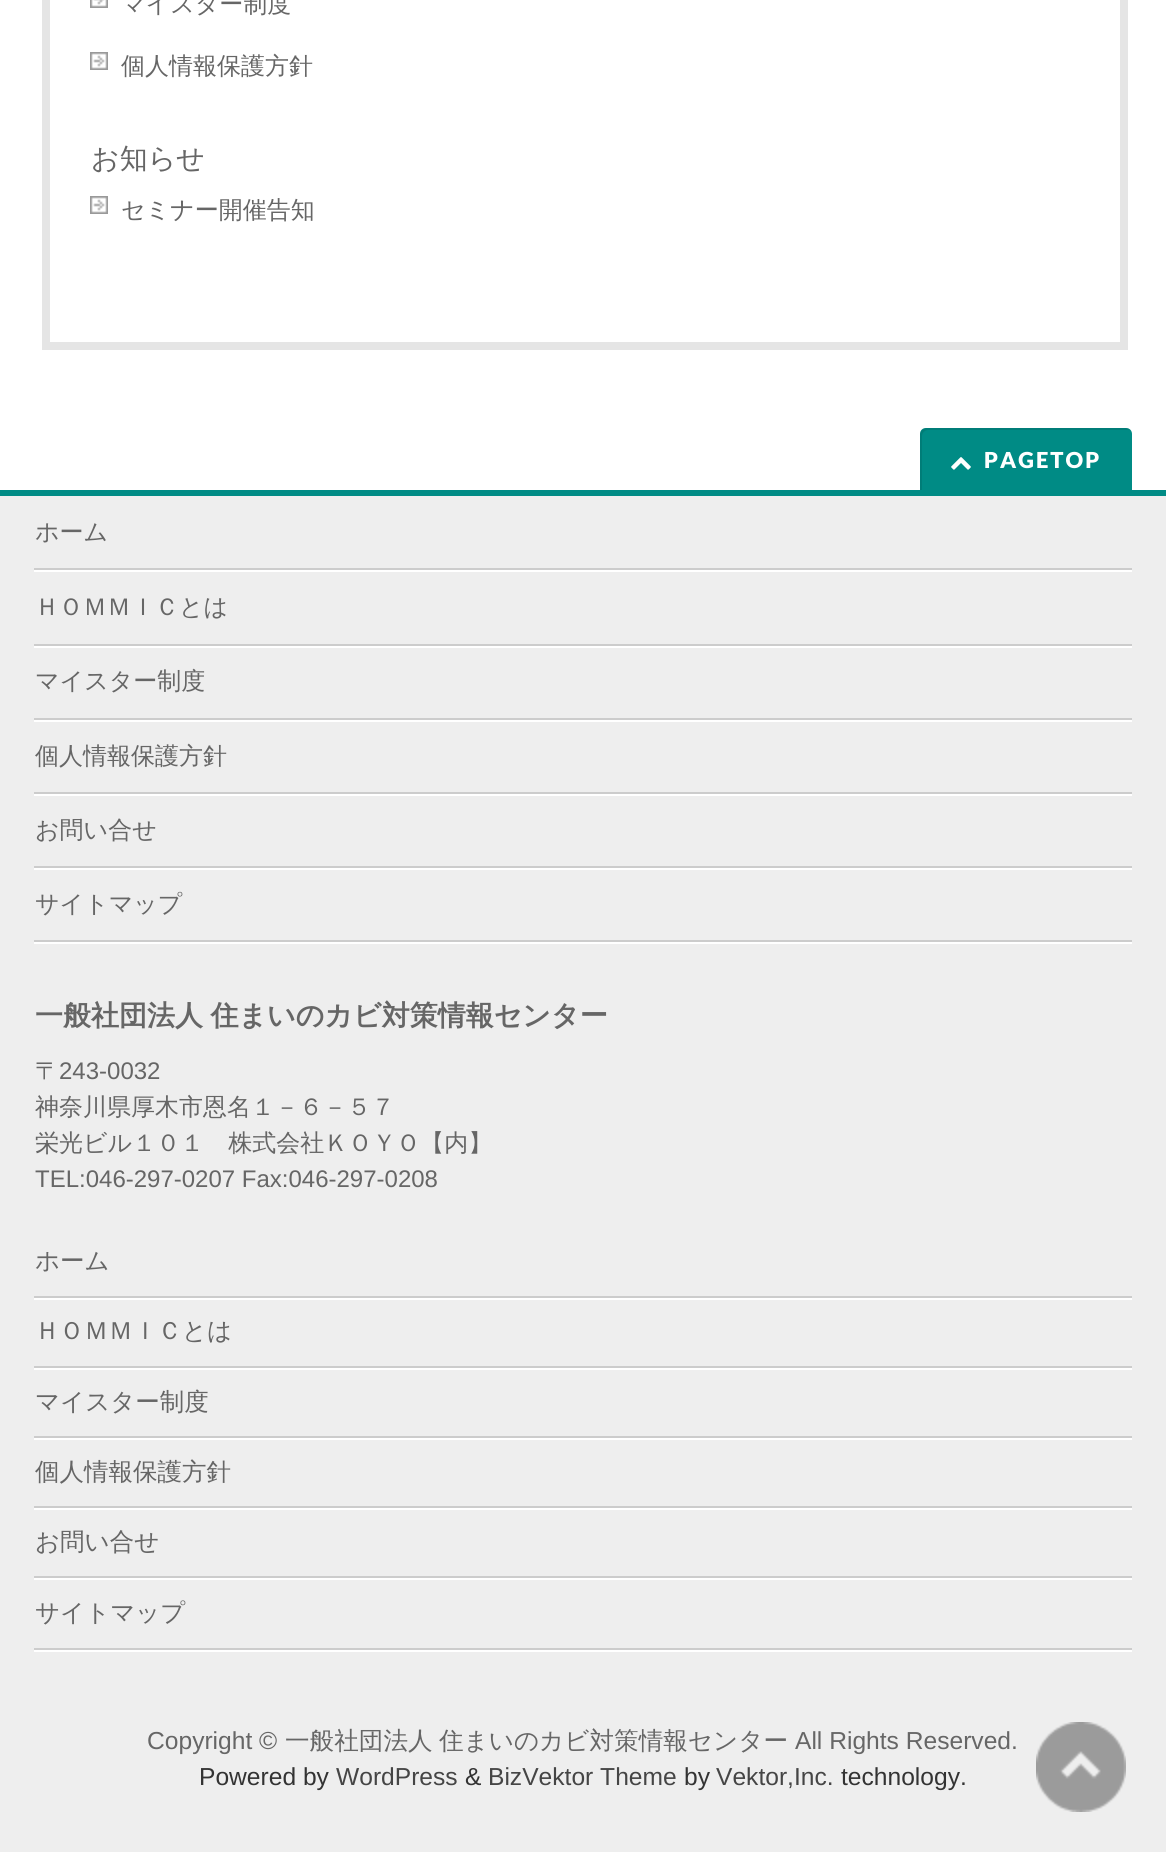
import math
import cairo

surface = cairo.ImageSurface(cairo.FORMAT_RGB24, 1166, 1852)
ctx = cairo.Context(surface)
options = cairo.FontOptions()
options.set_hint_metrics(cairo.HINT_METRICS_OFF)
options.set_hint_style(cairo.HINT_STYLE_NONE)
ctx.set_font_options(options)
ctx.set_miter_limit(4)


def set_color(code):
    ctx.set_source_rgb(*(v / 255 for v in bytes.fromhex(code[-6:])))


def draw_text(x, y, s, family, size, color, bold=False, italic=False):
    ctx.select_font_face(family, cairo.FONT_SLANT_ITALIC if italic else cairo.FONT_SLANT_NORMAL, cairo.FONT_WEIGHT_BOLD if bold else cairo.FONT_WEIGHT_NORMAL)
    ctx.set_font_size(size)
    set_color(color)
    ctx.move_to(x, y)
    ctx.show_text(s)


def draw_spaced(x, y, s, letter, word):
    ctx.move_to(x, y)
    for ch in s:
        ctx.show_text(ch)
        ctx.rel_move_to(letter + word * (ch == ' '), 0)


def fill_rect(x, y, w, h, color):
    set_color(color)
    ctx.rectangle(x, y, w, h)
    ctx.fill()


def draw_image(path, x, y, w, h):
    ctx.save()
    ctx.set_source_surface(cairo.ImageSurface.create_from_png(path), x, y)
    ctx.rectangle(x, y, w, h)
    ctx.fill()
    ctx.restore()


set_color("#ffffff")
ctx.paint()
ctx.rectangle(46, -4, 1078, 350)
set_color("#e5e5e5")
ctx.set_line_width(8)
ctx.stroke()
draw_image("assets/img1.png", 90, 0, 18, 8)
draw_text(121, 12, "マイスター制度", "WenQuanYi Zen Hei Medium", 24, "#666666")
draw_image("assets/img2.png", 90, 52, 18, 18)
draw_text(121, 74, "個人情報保護方針", "WenQuanYi Zen Hei Medium", 24, "#666666")
draw_text(91, 168, "お知らせ", "WenQuanYi Zen Hei Medium", 28, "#666666")
draw_image("assets/img2.png", 90, 196, 18, 18)
draw_text(121, 218, "セミナー開催告知", "WenQuanYi Zen Hei Medium", 24, "#666666")
set_color("#008b85")
ctx.new_path()
ctx.move_to(926, 428)
ctx.line_to(1126, 428)
ctx.curve_to(1129.5, 428, 1132, 430.5, 1132, 434)
ctx.line_to(1132, 490)
ctx.line_to(920, 490)
ctx.line_to(920, 434)
ctx.curve_to(920, 430.5, 922.5, 428, 926, 428)
ctx.close_path()
ctx.fill()
ctx.set_source_rgba(0, 0, 0, 0.1)
ctx.new_path()
ctx.move_to(928, 430)
ctx.line_to(1128, 430)
ctx.curve_to(1129, 430, 1130, 430, 1131, 431)
ctx.curve_to(1130, 429, 1128, 428, 1126, 428)
ctx.line_to(926, 428)
ctx.curve_to(923, 428, 920, 431, 920, 434)
ctx.line_to(920, 490)
ctx.line_to(922, 490)
ctx.line_to(922, 436)
ctx.curve_to(922, 433, 925, 430, 928, 430)
ctx.close_path()
ctx.fill()
draw_image("assets/img3.png", 951, 457, 20, 13)
ctx.select_font_face("Lato Black")
ctx.set_font_size(22)
set_color("#ffffff")
draw_spaced(984, 468, "PAGETOP", 2, 0)
fill_rect(0, 490, 1166, 6, "#008b85")
fill_rect(0, 496, 1166, 1356, "#eeeeee")
fill_rect(34, 570, 1098, 2, "#ffffff")
fill_rect(34, 568, 1098, 2, "#cccccc")
draw_text(35, 540, "ホーム", "WenQuanYi Zen Hei Medium", 24, "#666666")
fill_rect(34, 646, 1098, 2, "#ffffff")
fill_rect(34, 644, 1098, 2, "#cccccc")
draw_text(35, 615, "ＨＯＭＭＩＣとは", "WenQuanYi Zen Hei Medium", 24, "#666666")
fill_rect(34, 720, 1098, 2, "#ffffff")
fill_rect(34, 718, 1098, 2, "#cccccc")
draw_text(35, 689, "マイスター制度", "WenQuanYi Zen Hei Medium", 24, "#666666")
fill_rect(34, 794, 1098, 2, "#ffffff")
fill_rect(34, 792, 1098, 2, "#cccccc")
draw_text(35, 764, "個人情報保護方針", "WenQuanYi Zen Hei Medium", 24, "#666666")
fill_rect(34, 868, 1098, 2, "#ffffff")
fill_rect(34, 866, 1098, 2, "#cccccc")
draw_text(35, 838, "お問い合せ", "WenQuanYi Zen Hei Medium", 24, "#666666")
fill_rect(34, 942, 1098, 2, "#ffffff")
fill_rect(34, 940, 1098, 2, "#cccccc")
draw_text(35, 912, "サイトマップ", "WenQuanYi Zen Hei Medium", 24, "#666666")
ctx.select_font_face("WenQuanYi Zen Hei", cairo.FONT_SLANT_NORMAL, cairo.FONT_WEIGHT_BOLD)
ctx.set_font_size(28)
draw_spaced(35, 1025, "一般社団法人 住まいのカビ対策情報センター", 0, -1)
draw_text(35, 1079, "〒", "WenQuanYi Zen Hei Medium", 24, "#666666")
draw_text(59, 1079, "243-0032", "Liberation Sans", 24, "#666666")
draw_text(35, 1115, "神奈川県厚木市恩名１－６－５７", "WenQuanYi Zen Hei Medium", 24, "#666666")
draw_text(35, 1151, "栄光ビル１０１　株式会社ＫＯＹＯ【内】", "WenQuanYi Zen Hei Medium", 24, "#666666")
draw_text(35, 1187, "TEL:046-297-0207 Fax:046-297-0208", "Liberation Sans", 24, "#666666")
fill_rect(34, 1298, 1098, 2, "#ffffff")
fill_rect(34, 1296, 1098, 2, "#cccccc")
draw_text(35, 1269, "ホーム", "WenQuanYi Zen Hei Medium", 24.5, "#666666")
fill_rect(34, 1368, 1098, 2, "#ffffff")
fill_rect(34, 1366, 1098, 2, "#cccccc")
draw_text(35, 1339, "ＨＯＭＭＩＣとは", "WenQuanYi Zen Hei Medium", 24.5, "#666666")
fill_rect(34, 1438, 1098, 2, "#ffffff")
fill_rect(34, 1436, 1098, 2, "#cccccc")
draw_text(35, 1410, "マイスター制度", "WenQuanYi Zen Hei Medium", 24.5, "#666666")
fill_rect(34, 1508, 1098, 2, "#ffffff")
fill_rect(34, 1506, 1098, 2, "#cccccc")
draw_text(35, 1480, "個人情報保護方針", "WenQuanYi Zen Hei Medium", 24.5, "#666666")
fill_rect(34, 1578, 1098, 2, "#ffffff")
fill_rect(34, 1576, 1098, 2, "#cccccc")
draw_text(35, 1550, "お問い合せ", "WenQuanYi Zen Hei Medium", 24.5, "#666666")
fill_rect(34, 1650, 1098, 2, "#ffffff")
fill_rect(34, 1648, 1098, 2, "#cccccc")
draw_text(35, 1621, "サイトマップ", "WenQuanYi Zen Hei Medium", 24.5, "#666666")
draw_text(147, 1749, "Copyright ©", "Liberation Sans", 24.6, "#666666")
ctx.select_font_face("WenQuanYi Zen Hei Medium")
draw_spaced(285, 1749, "一般社団法人 住まいのカビ対策情報センター", 0, -1)
draw_text(795, 1749, "All Rights Reserved.", "Liberation Sans", 24.6, "#666666")
draw_text(199, 1785, "Powered by", "Liberation Sans", 24.6, "#333333")
draw_text(336, 1785, "WordPress", "Liberation Sans", 24.6, "#454545")
draw_text(465, 1785, "&", "Liberation Sans", 24.6, "#333333")
draw_text(488, 1785, "BizVektor Theme", "Liberation Sans", 24.6, "#454545")
draw_text(684, 1785, "by", "Liberation Sans", 24.6, "#333333")
draw_text(716, 1785, "Vektor,Inc.", "Liberation Sans", 24.6, "#454545")
draw_text(841, 1785, "technology.", "Liberation Sans", 24.6, "#333333")
draw_image("assets/img4.png", 1036, 1722, 90, 90)
surface.write_to_png("output.png")
